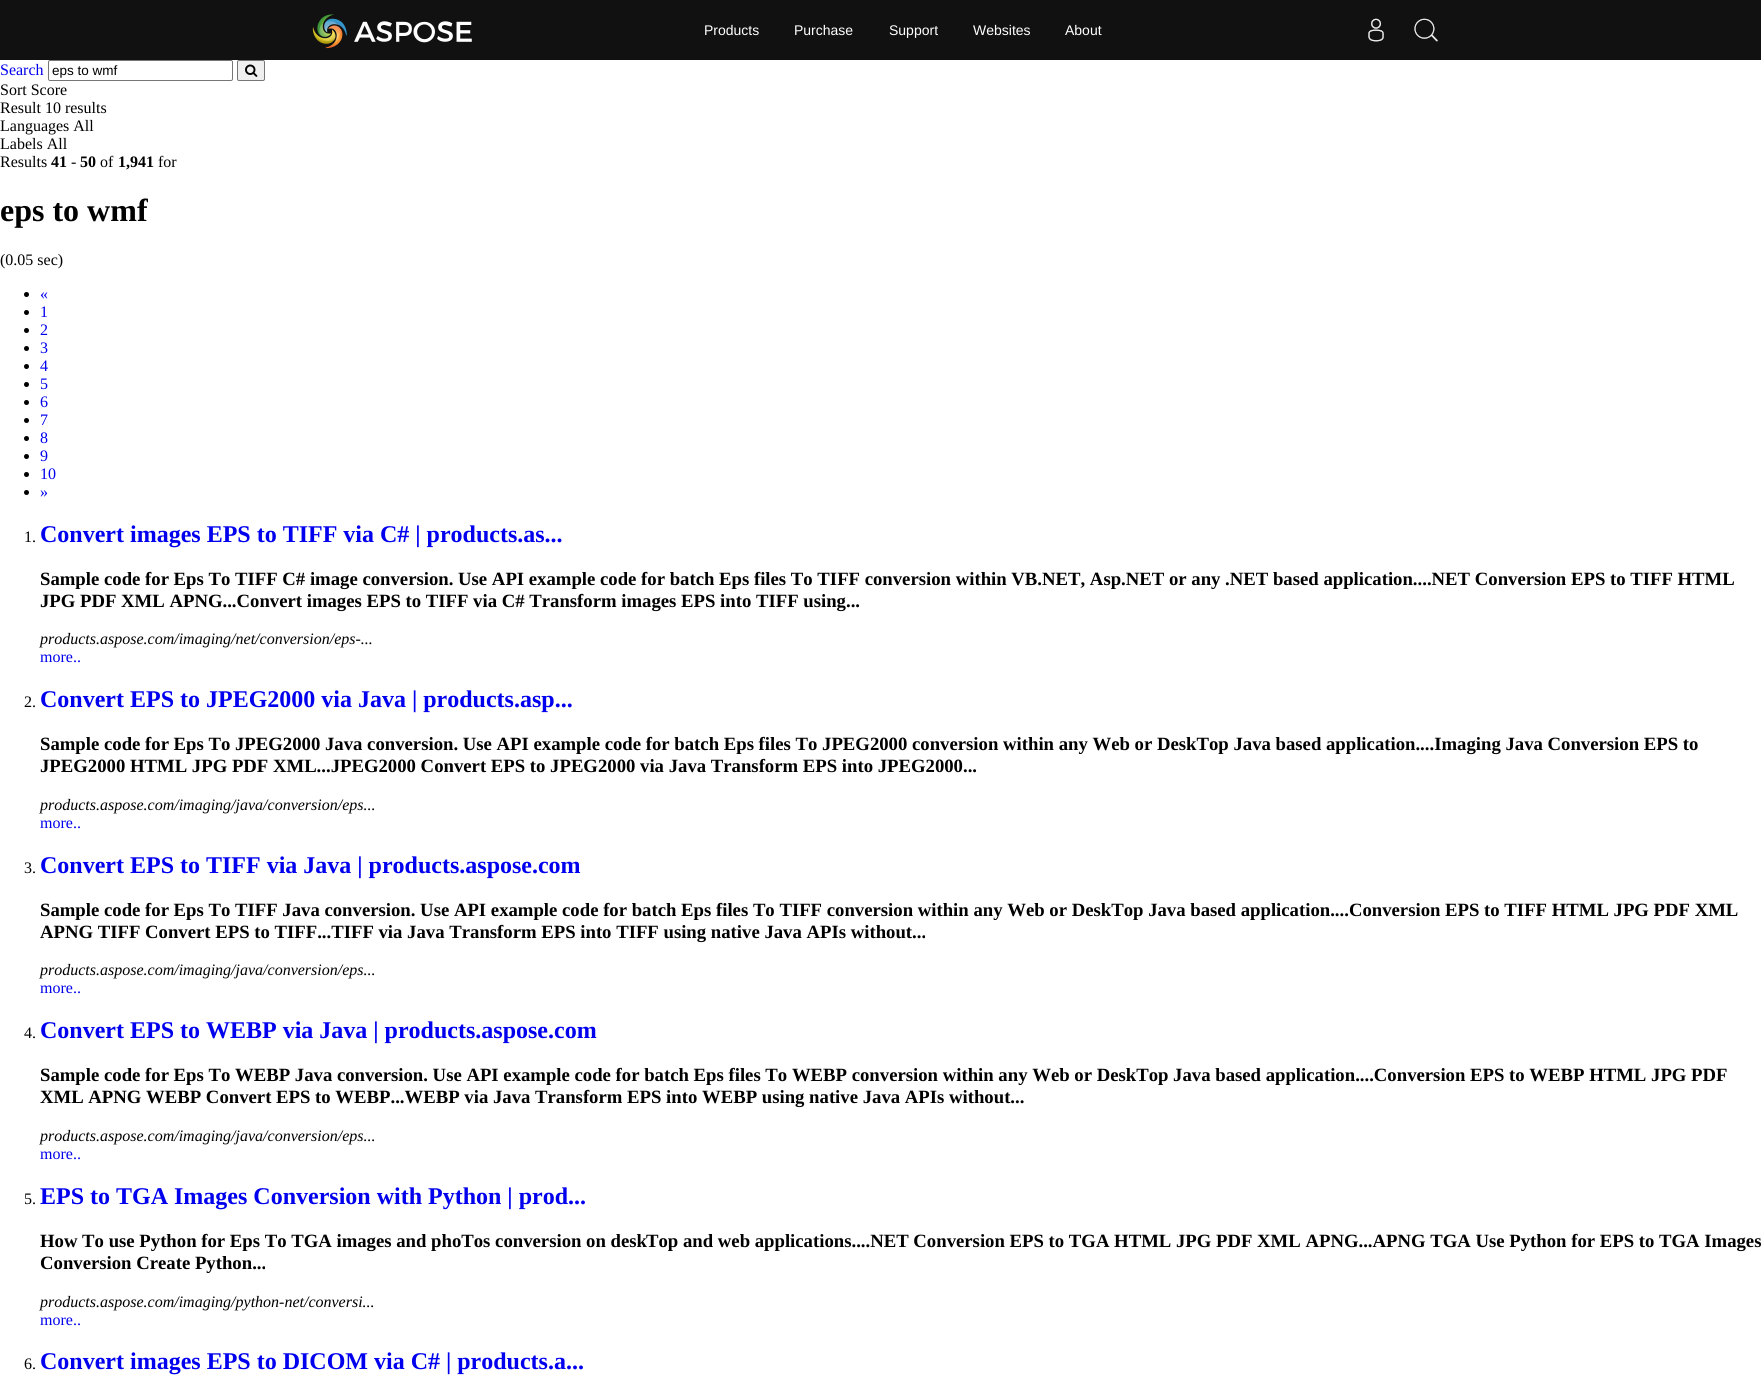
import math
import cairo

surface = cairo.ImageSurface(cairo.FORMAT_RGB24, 1761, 1394)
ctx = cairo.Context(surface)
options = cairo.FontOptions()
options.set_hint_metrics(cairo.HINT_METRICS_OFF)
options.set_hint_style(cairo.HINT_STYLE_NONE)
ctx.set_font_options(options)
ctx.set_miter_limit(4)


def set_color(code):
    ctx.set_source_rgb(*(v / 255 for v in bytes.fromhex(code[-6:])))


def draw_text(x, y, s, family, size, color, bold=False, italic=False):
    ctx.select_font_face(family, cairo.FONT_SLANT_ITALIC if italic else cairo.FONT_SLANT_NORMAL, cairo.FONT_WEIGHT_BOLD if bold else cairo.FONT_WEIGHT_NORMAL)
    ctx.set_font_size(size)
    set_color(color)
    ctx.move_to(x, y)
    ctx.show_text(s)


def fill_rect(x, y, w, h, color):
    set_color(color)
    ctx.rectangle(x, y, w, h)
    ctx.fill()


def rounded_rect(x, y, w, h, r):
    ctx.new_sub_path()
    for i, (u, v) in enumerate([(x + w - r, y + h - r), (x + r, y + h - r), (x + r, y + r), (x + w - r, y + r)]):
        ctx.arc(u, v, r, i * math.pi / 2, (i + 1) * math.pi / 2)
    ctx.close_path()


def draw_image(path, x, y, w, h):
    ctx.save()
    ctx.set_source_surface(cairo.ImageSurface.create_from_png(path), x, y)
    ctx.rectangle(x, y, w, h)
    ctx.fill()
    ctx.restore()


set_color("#ffffff")
ctx.paint()
fill_rect(0, 0, 1761, 60, "#111111")
draw_image("assets/img1.png", 312, 14, 160, 35)
draw_text(704, 35, "Products", "Liberation Sans", 14, "#ffffff")
draw_text(794, 35, "Purchase", "Liberation Sans", 14, "#ffffff")
draw_text(889, 35, "Support", "Liberation Sans", 14, "#ffffff")
draw_text(973, 35, "Websites", "Liberation Sans", 14, "#ffffff")
draw_text(1065, 35, "About", "Liberation Sans", 14, "#ffffff")
draw_image("assets/img2.png", 1368, 18, 16, 24)
draw_image("assets/img3.png", 1414, 18, 24, 24)
draw_text(0, 75, "Search", "Liberation Serif", 16, "#0000ee")
rounded_rect(48.5, 60.5, 184, 20, 1.5)
set_color("#767676")
ctx.set_line_width(1)
ctx.stroke()
draw_text(52, 75, "eps to wmf", "Liberation Sans", 13.5, "#000000")
set_color("#efefef")
rounded_rect(237.5, 60.5, 27, 20, 1.5)
ctx.fill_preserve()
set_color("#767676")
ctx.stroke()
draw_image("assets/img4.png", 245, 64, 13, 13)
draw_text(0, 95, "Sort Score", "Liberation Serif", 16, "#000000")
draw_text(0, 113, "Result 10 results", "Liberation Serif", 16, "#000000")
draw_text(0, 131, "Languages All", "Liberation Serif", 16, "#000000")
draw_text(0, 149, "Labels All", "Liberation Serif", 16, "#000000")
draw_text(0, 167, "Results", "Liberation Serif", 16, "#000000")
draw_text(51, 167, "41", "Liberation Serif", 16, "#000000", bold=True)
draw_text(71, 167, "-", "Liberation Serif", 16, "#000000")
draw_text(80, 167, "50", "Liberation Serif", 16, "#000000", bold=True)
draw_text(100, 167, "of", "Liberation Serif", 16, "#000000")
draw_text(118, 167, "1,941", "Liberation Serif", 16, "#000000", bold=True)
draw_text(158, 167, "for", "Liberation Serif", 16, "#000000")
draw_text(0, 221, "eps to wmf", "Liberation Serif", 32, "#000000", bold=True)
draw_text(0, 265, "(0.05 sec)", "Liberation Serif", 16, "#000000")
ctx.new_path()
ctx.arc(26.5, 294.5, 2.5, 0, 2 * math.pi)
ctx.fill()
draw_text(40, 299, "«", "Liberation Serif", 16, "#0000ee")
set_color("#000000")
ctx.new_path()
ctx.arc(26.5, 312.5, 2.5, 0, 2 * math.pi)
ctx.fill()
draw_text(40, 317, "1", "Liberation Serif", 16, "#0000ee")
set_color("#000000")
ctx.new_path()
ctx.arc(26.5, 330.5, 2.5, 0, 2 * math.pi)
ctx.fill()
draw_text(40, 335, "2", "Liberation Serif", 16, "#0000ee")
set_color("#000000")
ctx.new_path()
ctx.arc(26.5, 348.5, 2.5, 0, 2 * math.pi)
ctx.fill()
draw_text(40, 353, "3", "Liberation Serif", 16, "#0000ee")
set_color("#000000")
ctx.new_path()
ctx.arc(26.5, 366.5, 2.5, 0, 2 * math.pi)
ctx.fill()
draw_text(40, 371, "4", "Liberation Serif", 16, "#0000ee")
set_color("#000000")
ctx.new_path()
ctx.arc(26.5, 384.5, 2.5, 0, 2 * math.pi)
ctx.fill()
draw_text(40, 389, "5", "Liberation Serif", 16, "#0000ee")
set_color("#000000")
ctx.new_path()
ctx.arc(26.5, 402.5, 2.5, 0, 2 * math.pi)
ctx.fill()
draw_text(40, 407, "6", "Liberation Serif", 16, "#0000ee")
set_color("#000000")
ctx.new_path()
ctx.arc(26.5, 420.5, 2.5, 0, 2 * math.pi)
ctx.fill()
draw_text(40, 425, "7", "Liberation Serif", 16, "#0000ee")
set_color("#000000")
ctx.new_path()
ctx.arc(26.5, 438.5, 2.5, 0, 2 * math.pi)
ctx.fill()
draw_text(40, 443, "8", "Liberation Serif", 16, "#0000ee")
set_color("#000000")
ctx.new_path()
ctx.arc(26.5, 456.5, 2.5, 0, 2 * math.pi)
ctx.fill()
draw_text(40, 461, "9", "Liberation Serif", 16, "#0000ee")
set_color("#000000")
ctx.new_path()
ctx.arc(26.5, 474.5, 2.5, 0, 2 * math.pi)
ctx.fill()
draw_text(40, 479, "10", "Liberation Serif", 16, "#0000ee")
set_color("#000000")
ctx.new_path()
ctx.arc(26.5, 492.5, 2.5, 0, 2 * math.pi)
ctx.fill()
draw_text(40, 497, "»", "Liberation Serif", 16, "#0000ee")
draw_text(24, 542, "1.", "Liberation Serif", 16, "#000000")
draw_text(40, 542, "Convert images EPS to TIFF via C# | products.as...", "Liberation Serif", 24, "#0000ee", bold=True)
draw_text(40, 585, "Sample code for Eps To TIFF C# image conversion. Use API example code for batch Eps files To TIFF conversion within VB.NET, Asp.NET or any .NET based application....NET Conversion EPS to TIFF HTML", "Liberation Serif", 18.72, "#000000", bold=True)
draw_text(40, 607, "JPG PDF XML APNG...Convert images EPS to TIFF via C# Transform images EPS into TIFF using...", "Liberation Serif", 18.72, "#000000", bold=True)
draw_text(40, 644, "products.aspose.com/imaging/net/conversion/eps-...", "Liberation Serif", 16, "#000000", italic=True)
draw_text(40, 662, "more..", "Liberation Serif", 16, "#0000ee")
draw_text(24, 707, "2.", "Liberation Serif", 16, "#000000")
draw_text(40, 707, "Convert EPS to JPEG2000 via Java | products.asp...", "Liberation Serif", 24, "#0000ee", bold=True)
draw_text(40, 750, "Sample code for Eps To JPEG2000 Java conversion. Use API example code for batch Eps files To JPEG2000 conversion within any Web or DeskTop Java based application....Imaging Java Conversion EPS to", "Liberation Serif", 18.72, "#000000", bold=True)
draw_text(40, 772, "JPEG2000 HTML JPG PDF XML...JPEG2000 Convert EPS to JPEG2000 via Java Transform EPS into JPEG2000...", "Liberation Serif", 18.72, "#000000", bold=True)
draw_text(40, 810, "products.aspose.com/imaging/java/conversion/eps...", "Liberation Serif", 16, "#000000", italic=True)
draw_text(40, 828, "more..", "Liberation Serif", 16, "#0000ee")
draw_text(24, 873, "3.", "Liberation Serif", 16, "#000000")
draw_text(40, 873, "Convert EPS to TIFF via Java | products.aspose.com", "Liberation Serif", 24, "#0000ee", bold=True)
draw_text(40, 916, "Sample code for Eps To TIFF Java conversion. Use API example code for batch Eps files To TIFF conversion within any Web or DeskTop Java based application....Conversion EPS to TIFF HTML JPG PDF XML", "Liberation Serif", 18.72, "#000000", bold=True)
draw_text(40, 938, "APNG TIFF Convert EPS to TIFF...TIFF via Java Transform EPS into TIFF using native Java APIs without...", "Liberation Serif", 18.72, "#000000", bold=True)
draw_text(40, 975, "products.aspose.com/imaging/java/conversion/eps...", "Liberation Serif", 16, "#000000", italic=True)
draw_text(40, 993, "more..", "Liberation Serif", 16, "#0000ee")
draw_text(24, 1038, "4.", "Liberation Serif", 16, "#000000")
draw_text(40, 1038, "Convert EPS to WEBP via Java | products.aspose.com", "Liberation Serif", 24, "#0000ee", bold=True)
draw_text(40, 1081, "Sample code for Eps To WEBP Java conversion. Use API example code for batch Eps files To WEBP conversion within any Web or DeskTop Java based application....Conversion EPS to WEBP HTML JPG PDF", "Liberation Serif", 18.72, "#000000", bold=True)
draw_text(40, 1103, "XML APNG WEBP Convert EPS to WEBP...WEBP via Java Transform EPS into WEBP using native Java APIs without...", "Liberation Serif", 18.72, "#000000", bold=True)
draw_text(40, 1141, "products.aspose.com/imaging/java/conversion/eps...", "Liberation Serif", 16, "#000000", italic=True)
draw_text(40, 1159, "more..", "Liberation Serif", 16, "#0000ee")
draw_text(24, 1204, "5.", "Liberation Serif", 16, "#000000")
draw_text(40, 1204, "EPS to TGA Images Conversion with Python | prod...", "Liberation Serif", 24, "#0000ee", bold=True)
draw_text(40, 1247, "How To use Python for Eps To TGA images and phoTos conversion on desk", "Liberation Serif", 18.72, "#000000", bold=True)
draw_text(646, 1247, "Top and web applications....NET Conversion EPS to TGA HTML JPG PDF XML APNG...APNG TGA Use Python for EPS to TGA Images", "Liberation Serif", 18.72, "#000000", bold=True)
draw_text(40, 1269, "Conversion Create Python...", "Liberation Serif", 18.72, "#000000", bold=True)
draw_text(40, 1307, "products.aspose.com/imaging/python-net/conversi...", "Liberation Serif", 16, "#000000", italic=True)
draw_text(40, 1325, "more..", "Liberation Serif", 16, "#0000ee")
draw_text(24, 1369, "6.", "Liberation Serif", 16, "#000000")
draw_text(40, 1369, "Convert images EPS to DICOM via C# | products.a...", "Liberation Serif", 24, "#0000ee", bold=True)
surface.write_to_png("output.png")
